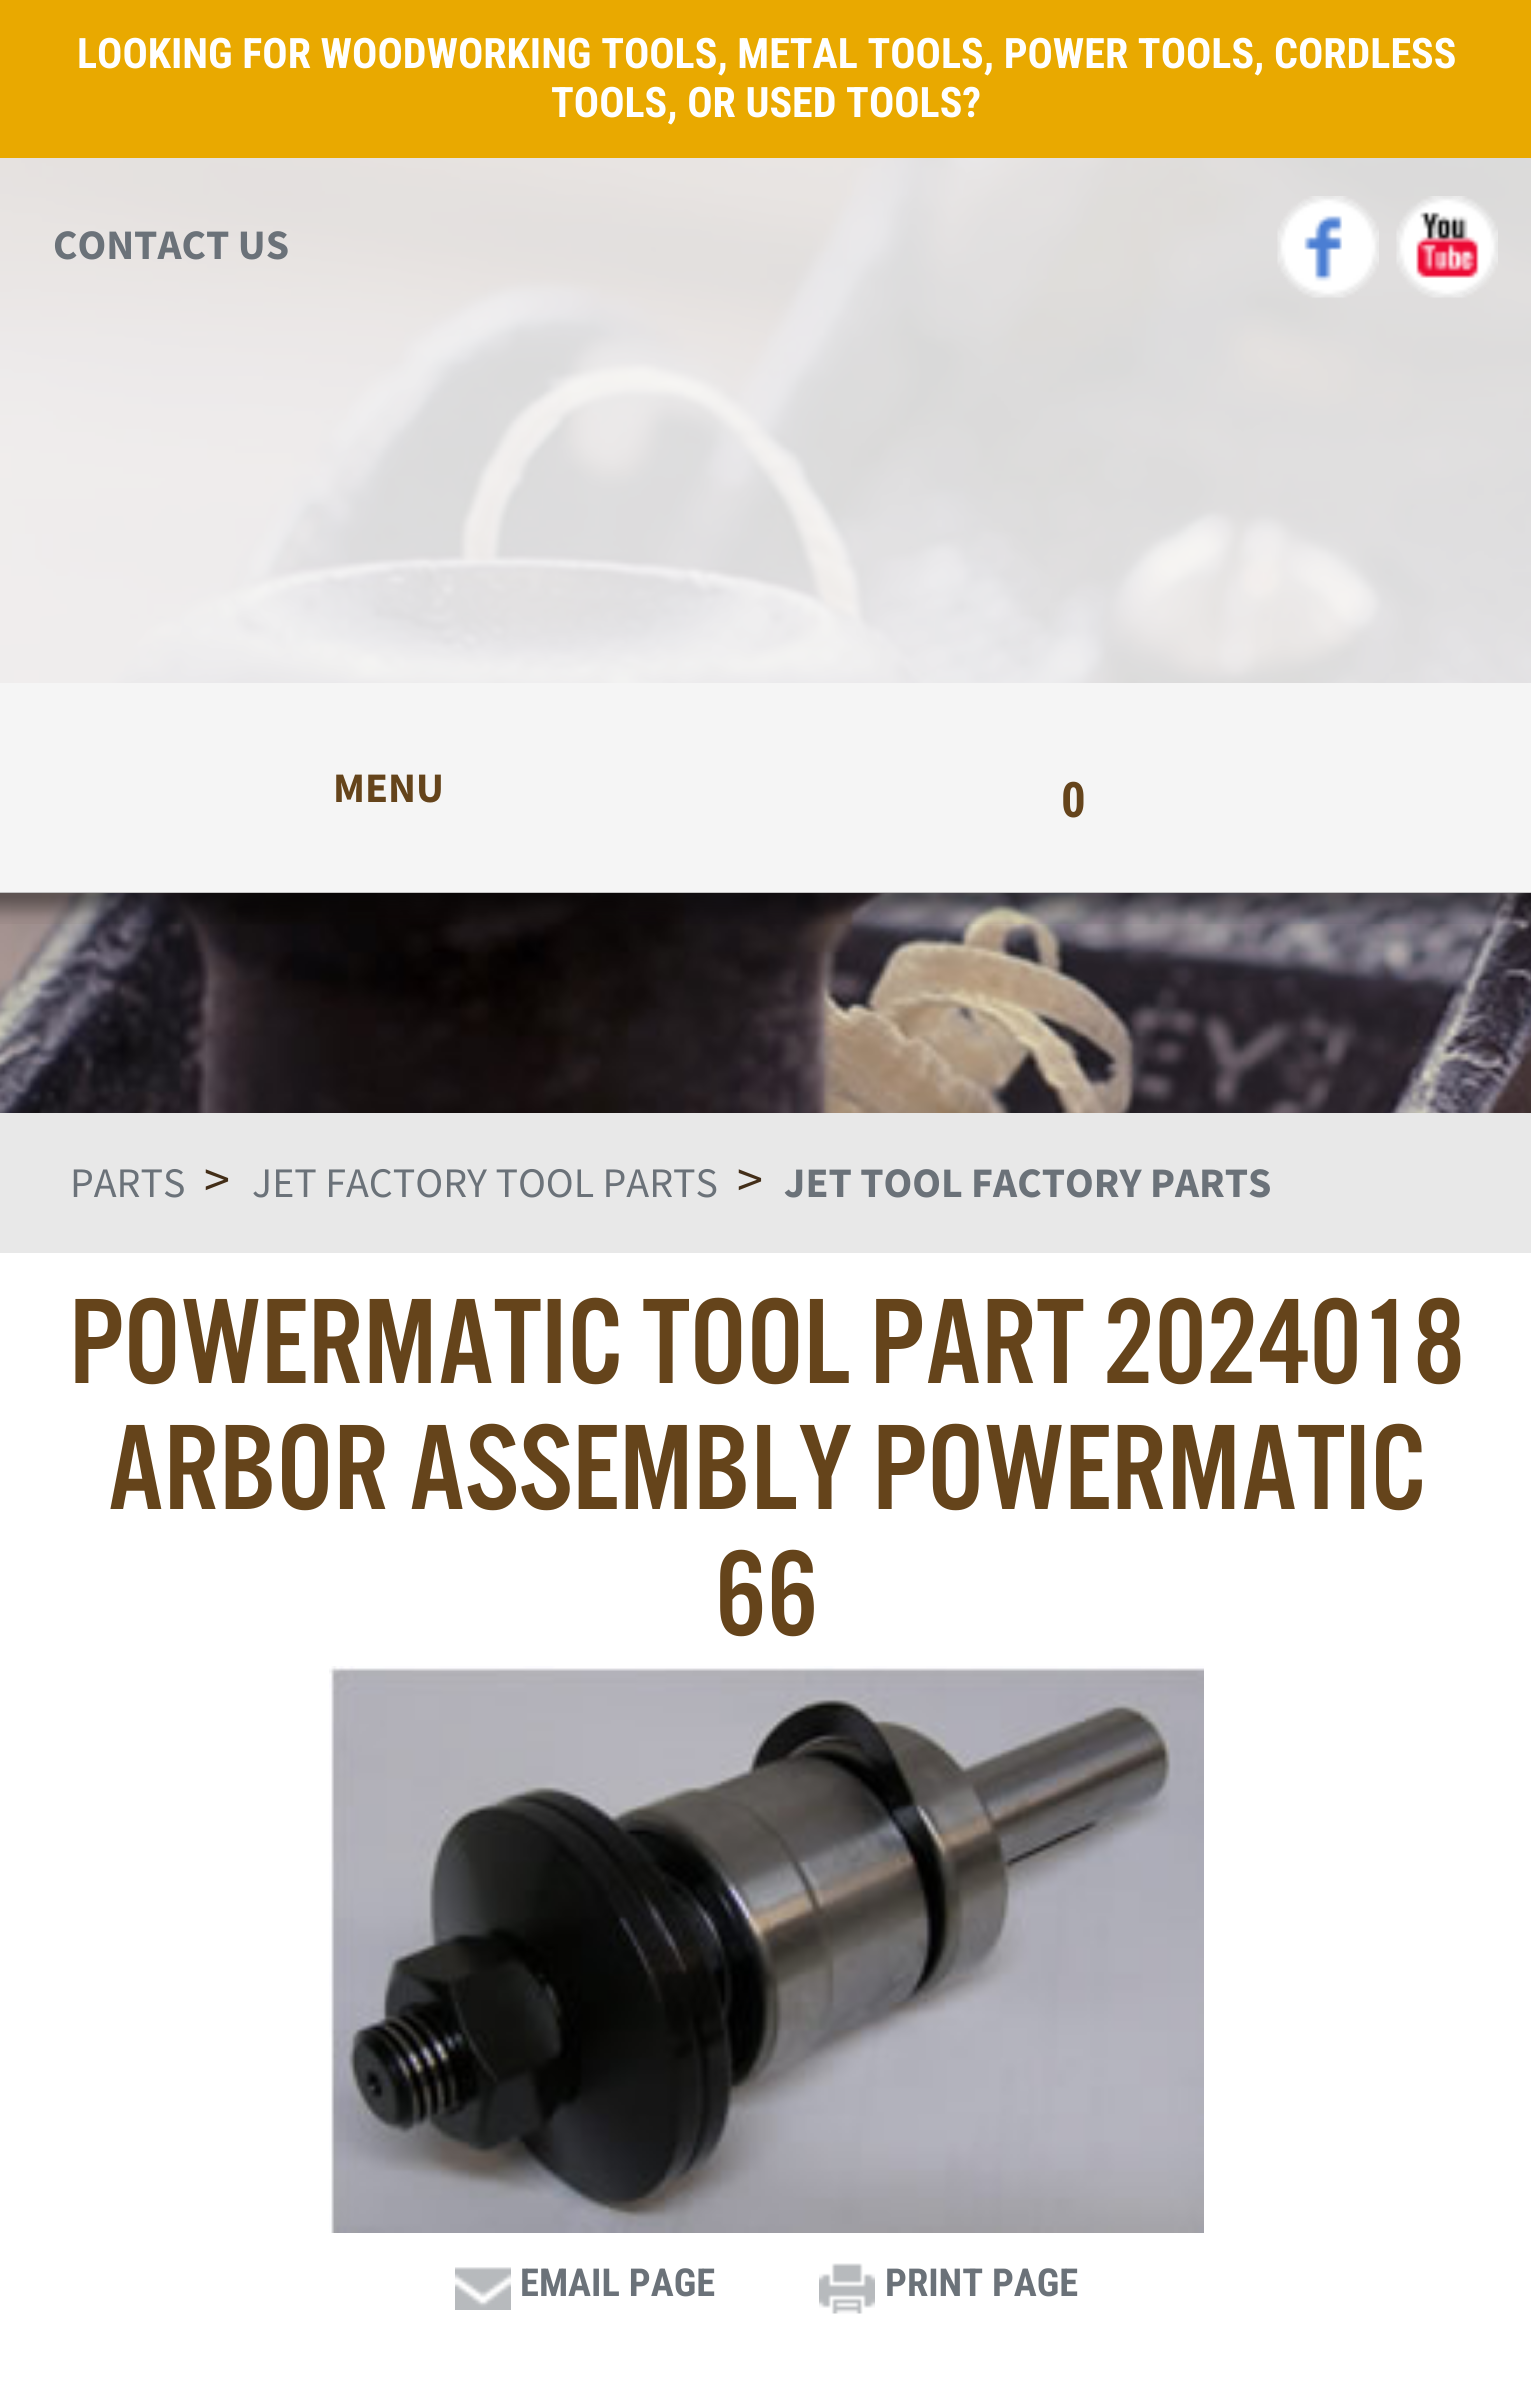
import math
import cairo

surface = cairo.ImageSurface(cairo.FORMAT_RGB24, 1531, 2389)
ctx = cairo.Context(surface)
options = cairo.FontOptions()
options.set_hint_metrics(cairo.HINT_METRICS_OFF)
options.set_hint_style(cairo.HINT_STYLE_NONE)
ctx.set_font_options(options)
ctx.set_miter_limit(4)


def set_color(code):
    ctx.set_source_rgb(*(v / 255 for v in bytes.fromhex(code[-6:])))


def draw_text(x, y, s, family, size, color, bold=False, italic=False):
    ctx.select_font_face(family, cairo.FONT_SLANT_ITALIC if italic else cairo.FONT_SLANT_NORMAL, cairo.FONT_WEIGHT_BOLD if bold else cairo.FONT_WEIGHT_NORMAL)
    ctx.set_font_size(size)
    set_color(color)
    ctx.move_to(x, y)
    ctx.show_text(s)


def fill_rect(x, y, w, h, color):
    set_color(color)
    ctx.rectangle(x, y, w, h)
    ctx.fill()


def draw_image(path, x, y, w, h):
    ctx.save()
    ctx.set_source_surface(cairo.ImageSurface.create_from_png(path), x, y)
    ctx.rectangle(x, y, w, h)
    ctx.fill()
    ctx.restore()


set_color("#ffffff")
ctx.paint()
draw_image("assets/img1.png", 0, 158, 1531, 955)
ctx.set_source_rgba(1, 1, 1, 0.85)
ctx.rectangle(0, 158, 1531, 525)
ctx.fill()
fill_rect(0, 0, 1531, 158, "#e9a900")
draw_text(77, 68, "LOOKING FOR WOODWORKING TOOLS, METAL TOOLS, POWER TOOLS, CORDLESS", "Roboto Condensed", 42, "#ffffff", bold=True)
draw_text(551, 117, "TOOLS, OR USED TOOLS?", "Roboto Condensed", 42, "#ffffff", bold=True)
draw_text(53, 259, "CONTACT US", "Source Sans Pro", 42, "#6b7279", bold=True)
draw_image("assets/img2.png", 1277, 196, 102, 102)
draw_image("assets/img3.png", 1396, 196, 102, 102)
fill_rect(0, 683, 1531, 210, "#f5f5f5")
draw_text(333, 802, "MENU", "Source Sans Pro", 42, "#65441b", bold=True)
draw_text(1061, 817, "0", "Roboto Condensed", 49, "#65441b", bold=True)
draw_image("assets/img4.png", 0, 892, 1531, 32)
fill_rect(0, 1113, 1531, 140, "#e8e8e8")
draw_text(70, 1197, "PARTS", "Source Sans Pro", 42, "#6b7279")
draw_text(204, 1197, ">", "Source Sans Pro", 52, "#432e18")
draw_text(252, 1197, "JET FACTORY TOOL PARTS", "Source Sans Pro", 42, "#6b7279")
draw_text(737, 1197, ">", "Source Sans Pro", 52, "#432e18")
draw_text(784, 1197, "JET TOOL FACTORY PARTS", "Source Sans Pro", 42, "#6b7279", bold=True)
draw_text(69, 1383, "POWERMATIC TOOL PART 2024018", "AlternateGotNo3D", 126, "#65441b")
draw_text(107, 1509, "ARBOR ASSEMBLY POWERMATIC", "AlternateGotNo3D", 126, "#65441b")
draw_text(715, 1635, "66", "AlternateGotNo3D", 126, "#65441b")
draw_image("assets/img5.png", 329, 1666, 875, 567)
draw_image("assets/img6.png", 455, 2267, 56, 43)
draw_text(520, 2296, "EMAIL PAGE", "Roboto Condensed", 38.5, "#6b7279", bold=True)
draw_image("assets/img7.png", 819, 2263, 56, 51)
draw_text(885, 2296, "PRINT PAGE", "Roboto Condensed", 38.5, "#6b7279", bold=True)
surface.write_to_png("output.png")
